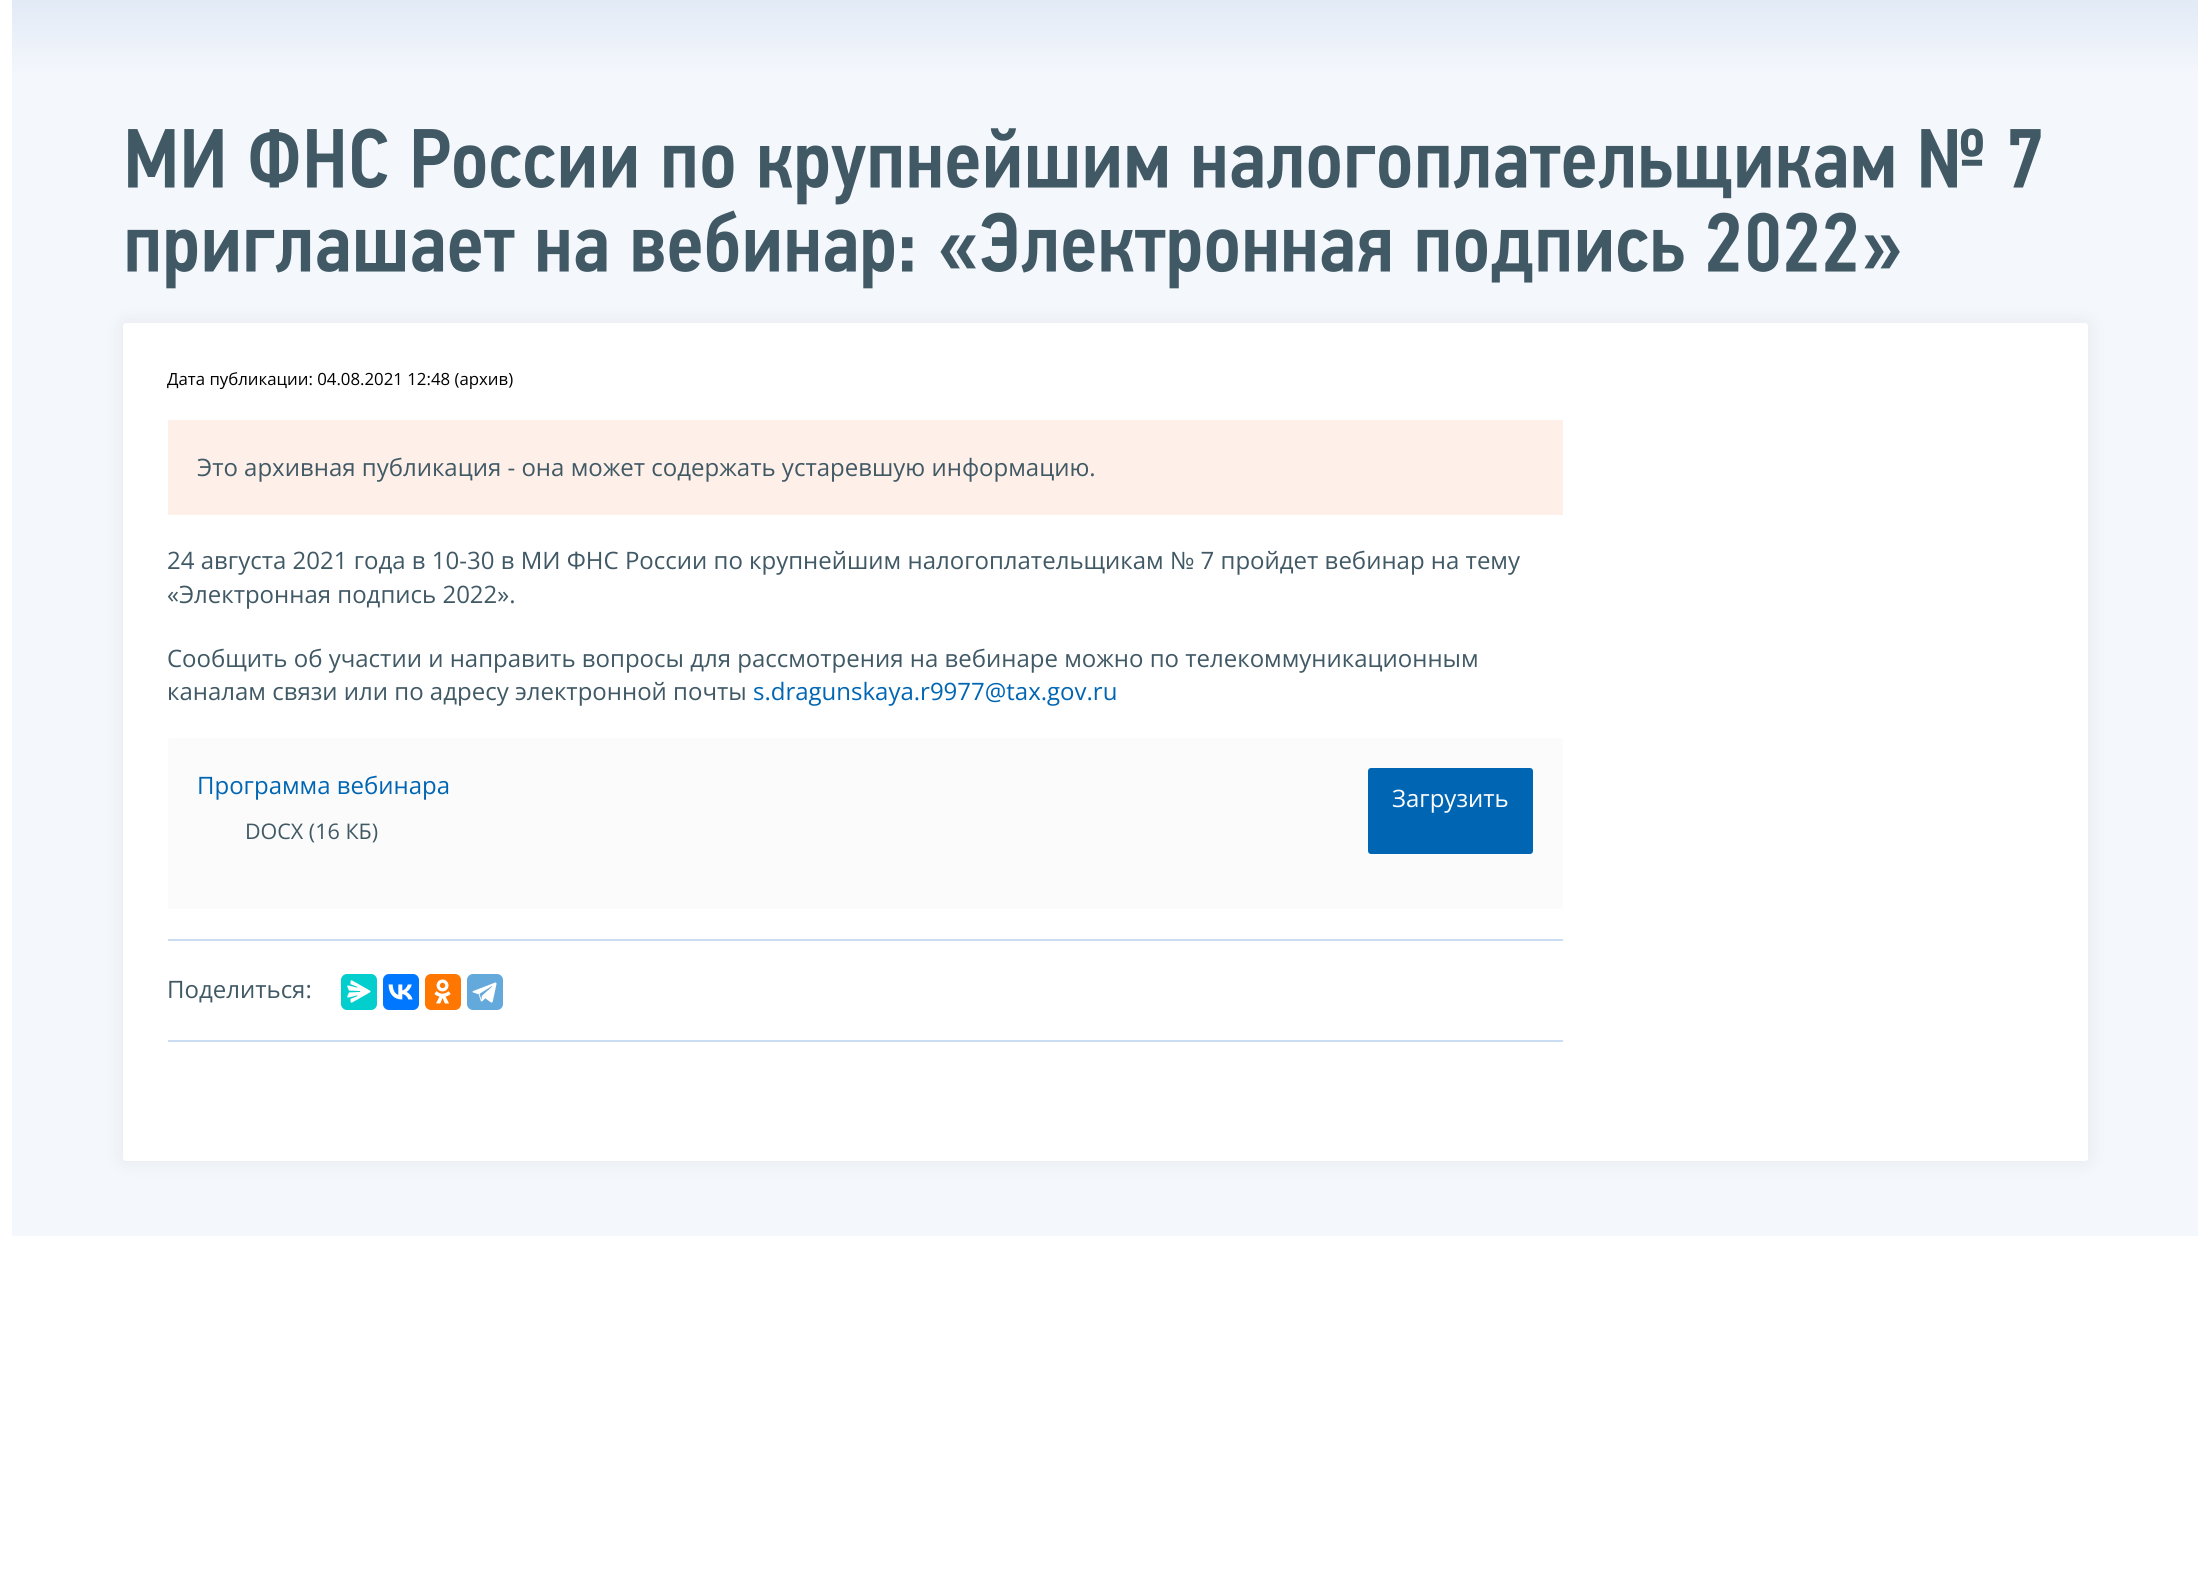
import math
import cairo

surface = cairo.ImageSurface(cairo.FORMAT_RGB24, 2209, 1577)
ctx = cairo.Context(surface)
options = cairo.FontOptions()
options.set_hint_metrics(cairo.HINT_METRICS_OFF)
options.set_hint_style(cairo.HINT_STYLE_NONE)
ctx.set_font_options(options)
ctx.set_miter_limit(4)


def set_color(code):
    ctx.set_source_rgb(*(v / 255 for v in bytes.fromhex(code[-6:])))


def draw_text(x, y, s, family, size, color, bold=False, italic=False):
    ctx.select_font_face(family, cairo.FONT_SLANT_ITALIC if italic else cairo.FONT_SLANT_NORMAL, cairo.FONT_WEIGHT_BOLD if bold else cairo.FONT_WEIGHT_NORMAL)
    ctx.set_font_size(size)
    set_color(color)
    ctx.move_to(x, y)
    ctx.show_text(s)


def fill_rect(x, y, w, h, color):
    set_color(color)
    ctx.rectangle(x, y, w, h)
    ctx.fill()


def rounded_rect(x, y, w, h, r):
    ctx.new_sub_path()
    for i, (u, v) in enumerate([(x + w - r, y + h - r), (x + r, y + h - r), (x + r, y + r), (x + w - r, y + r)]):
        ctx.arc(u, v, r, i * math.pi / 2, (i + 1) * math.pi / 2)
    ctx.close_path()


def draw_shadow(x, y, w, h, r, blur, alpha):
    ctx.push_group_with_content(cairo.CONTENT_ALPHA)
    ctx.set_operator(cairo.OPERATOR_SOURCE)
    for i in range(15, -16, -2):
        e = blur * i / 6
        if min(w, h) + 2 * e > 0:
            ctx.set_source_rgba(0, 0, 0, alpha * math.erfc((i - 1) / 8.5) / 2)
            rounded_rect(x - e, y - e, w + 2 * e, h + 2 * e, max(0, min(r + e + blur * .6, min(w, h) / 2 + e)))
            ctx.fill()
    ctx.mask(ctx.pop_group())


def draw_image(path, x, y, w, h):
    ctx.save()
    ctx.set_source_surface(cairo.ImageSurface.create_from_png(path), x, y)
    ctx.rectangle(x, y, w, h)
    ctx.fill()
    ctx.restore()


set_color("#ffffff")
ctx.paint()
fill_rect(12, 75, 2186, 1161, "#f4f7fc")
gradient = cairo.LinearGradient(1105, 0, 1105, 75)
gradient.add_color_stop_rgba(0, 0.886, 0.918, 0.965, 1)
gradient.add_color_stop_rgba(1, 0.957, 0.969, 0.988, 1)
ctx.set_source(gradient)
ctx.rectangle(12, 0, 2186, 75)
ctx.fill()
draw_image("assets/img1.png", 128, 128, 1913, 77)
draw_image("assets/img2.png", 127, 210, 1773, 79)
set_color("#000000")
draw_shadow(123, 323, 1965, 838, 3, 11, 0.07)
set_color("#ffffff")
rounded_rect(123, 323, 1965, 838, 3)
ctx.fill()
draw_text(167, 385, "Дата публикации: 04.08.2021 12:48 (архив)", "Open Sans", 16.8, "#000000")
fill_rect(168, 420, 1395, 95, "#feefe9")
draw_text(197, 476, "Это архивная публикация - она может содержать устаревшую информацию.", "Open Sans", 24, "#405965")
draw_text(167, 569, "24 августа 2021 года в 10-30 в МИ ФНС России по крупнейшим налогоплательщикам № 7 пройдет вебинар на тему", "Open Sans", 24, "#405965")
draw_text(167, 603, "«Электронная подпись 2022».", "Open Sans", 24, "#405965")
draw_text(167, 667, "Сообщить об участии и направить вопросы для рассмотрения на вебинаре можно по телекоммуникационным", "Open Sans", 24, "#405965")
draw_text(167, 700, "каналам связи или по адресу электронной почты", "Open Sans", 24, "#405965")
draw_text(753, 700, "s.dragunskaya.r9977@tax.gov.ru", "Open Sans", 24, "#0066b3")
set_color("#fbfbfb")
rounded_rect(168, 738, 1395, 171, 3)
ctx.fill()
draw_text(197, 794, "Программа вебинара", "Open Sans", 24, "#0066b3")
draw_text(245, 839, "DOCX (16 КБ)", "Open Sans", 21.5, "#405965")
set_color("#0066b3")
rounded_rect(1369, 769, 163, 84, 2)
ctx.fill_preserve()
ctx.stroke()
draw_text(1392, 807, "Загрузить", "Open Sans", 24, "#ffffff")
fill_rect(168, 939, 1395, 2, "#caddf2")
fill_rect(168, 1040, 1395, 2, "#caddf2")
draw_text(167, 998, "Поделиться:", "Open Sans", 24, "#405965")
set_color("#03cece")
rounded_rect(341, 974, 36, 36, 6)
ctx.fill()
draw_image("assets/img3.png", 347, 980, 24, 23)
set_color("#0077ff")
rounded_rect(383, 974, 36, 36, 6)
ctx.fill()
draw_image("assets/img4.png", 388, 984, 25, 16)
set_color("#ff7700")
rounded_rect(425, 974, 36, 36, 6)
ctx.fill()
draw_image("assets/img5.png", 434, 979, 17, 25)
set_color("#64a9dc")
rounded_rect(467, 974, 36, 36, 6)
ctx.fill()
draw_image("assets/img6.png", 472, 982, 25, 21)
surface.write_to_png("output.png")
